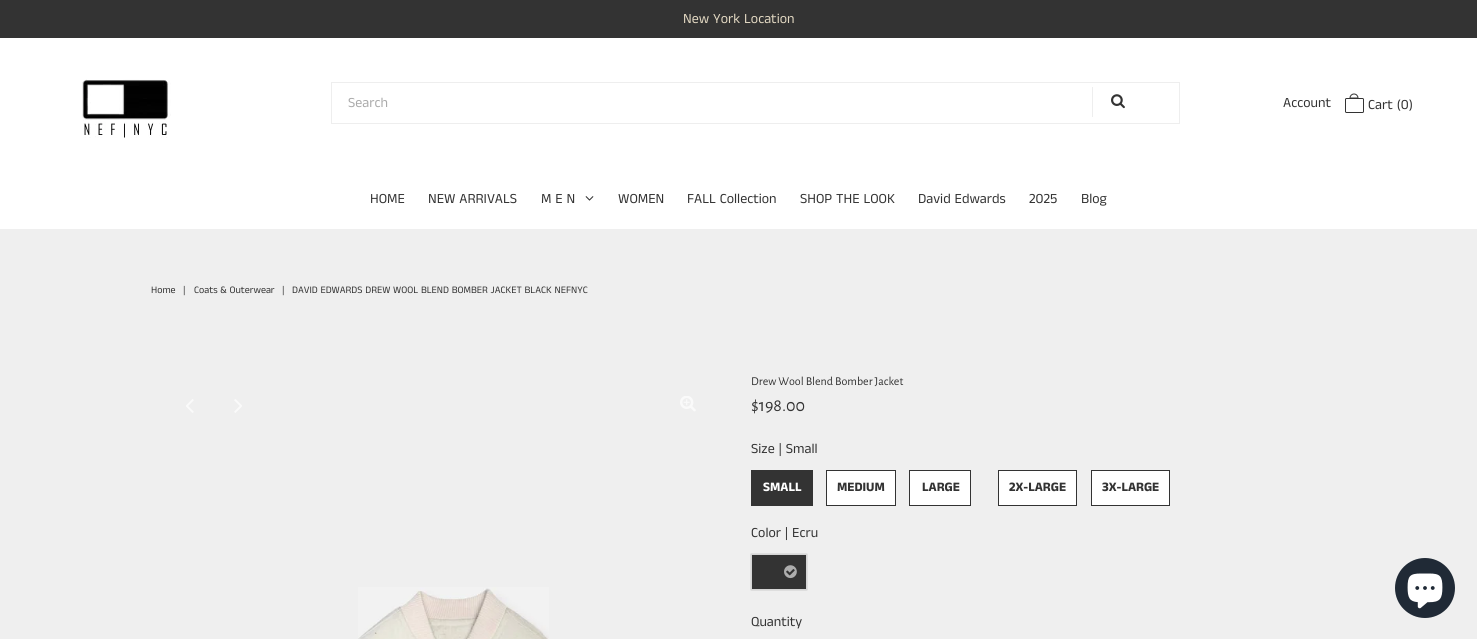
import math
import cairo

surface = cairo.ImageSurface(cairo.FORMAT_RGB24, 1477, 639)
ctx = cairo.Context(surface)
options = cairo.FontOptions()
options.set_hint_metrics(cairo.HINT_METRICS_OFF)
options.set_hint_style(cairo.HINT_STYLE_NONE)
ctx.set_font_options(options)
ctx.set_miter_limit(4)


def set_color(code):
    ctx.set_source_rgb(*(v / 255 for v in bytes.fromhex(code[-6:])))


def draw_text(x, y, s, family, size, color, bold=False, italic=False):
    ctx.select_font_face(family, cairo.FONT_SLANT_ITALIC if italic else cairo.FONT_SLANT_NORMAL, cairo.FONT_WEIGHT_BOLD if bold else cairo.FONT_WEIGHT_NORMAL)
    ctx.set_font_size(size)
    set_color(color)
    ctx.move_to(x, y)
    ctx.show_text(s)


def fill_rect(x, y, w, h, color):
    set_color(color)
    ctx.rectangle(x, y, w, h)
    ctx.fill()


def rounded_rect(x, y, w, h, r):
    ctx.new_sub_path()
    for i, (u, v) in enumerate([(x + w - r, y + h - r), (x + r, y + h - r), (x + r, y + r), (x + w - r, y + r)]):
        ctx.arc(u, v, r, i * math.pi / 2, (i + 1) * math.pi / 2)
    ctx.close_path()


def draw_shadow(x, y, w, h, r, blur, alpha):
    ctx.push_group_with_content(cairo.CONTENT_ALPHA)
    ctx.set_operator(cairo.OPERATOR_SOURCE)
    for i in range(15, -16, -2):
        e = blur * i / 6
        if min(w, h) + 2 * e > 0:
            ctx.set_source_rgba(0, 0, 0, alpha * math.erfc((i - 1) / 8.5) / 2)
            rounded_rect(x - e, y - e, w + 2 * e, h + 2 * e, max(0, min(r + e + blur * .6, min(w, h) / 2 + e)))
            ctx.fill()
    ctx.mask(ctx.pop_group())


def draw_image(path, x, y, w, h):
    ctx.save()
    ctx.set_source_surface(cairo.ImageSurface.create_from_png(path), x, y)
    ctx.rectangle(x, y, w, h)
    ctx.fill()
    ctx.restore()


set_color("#efefef")
ctx.paint()
fill_rect(0, 38, 1477, 191, "#ffffff")
fill_rect(0, 0, 1477, 38, "#333333")
draw_text(683, 23, "New York Location", "Anek Tamil", 14, "#e2d8c2")
draw_image("assets/img1.png", 82, 79, 89, 59)
ctx.rectangle(331.5, 82.5, 848, 41)
set_color("#eeeeee")
ctx.set_line_width(1)
ctx.stroke()
draw_text(348, 107, "Search", "Anek Tamil", 14, "#aaaaaa")
fill_rect(1092, 87, 1, 30, "#eeeeee")
draw_image("assets/img2.png", 1111, 94, 14, 15)
draw_text(1283, 107, "Account", "Anek Tamil", 14, "#333333")
draw_image("assets/img3.png", 1345, 93, 19, 20)
draw_text(1368, 109, "Cart (0)", "Anek Tamil", 14, "#333333")
draw_text(370, 203, "HOME", "Anek Tamil", 14, "#333333")
draw_text(428, 203, "NEW ARRIVALS", "Anek Tamil", 14, "#333333")
draw_text(541, 203, "M E N", "Anek Tamil", 14, "#333333")
draw_image("assets/img4.png", 585, 196, 9, 5)
draw_text(618, 203, "WOMEN", "Anek Tamil", 14, "#333333")
draw_text(687, 203, "FALL Collection", "Anek Tamil", 14, "#333333")
draw_text(800, 203, "SHOP THE LOOK", "Anek Tamil", 14, "#333333")
draw_text(918, 203, "David Edwards", "Anek Tamil", 14, "#333333")
draw_text(1029, 203, "2025", "Anek Tamil", 14, "#333333")
draw_text(1081, 203, "Blog", "Anek Tamil", 14, "#333333")
draw_text(151, 293, "Home", "Anek Tamil", 10, "#333333")
draw_text(183, 293, "|", "Anek Tamil", 10, "#333333")
draw_text(194, 293, "Coats & Outerwear", "Anek Tamil", 10, "#333333")
draw_text(282, 293, "|", "Anek Tamil", 10, "#333333")
draw_text(292, 293, "DAVID EDWARDS DREW WOOL BLEND BOMBER JACKET BLACK NEFNYC", "Anek Tamil", 10, "#333333")
draw_image("assets/img5.png", 186, 399, 8, 14)
draw_image("assets/img6.png", 234, 399, 8, 14)
draw_image("assets/img7.png", 680, 396, 16, 16)
draw_image("assets/img8.png", 358, 587, 191, 52)
draw_text(751, 385, "Drew Wool Blend Bomber Jacket", "Alegreya Sans", 12, "#333333")
draw_text(751, 411, "$198.00", "Alegreya Sans", 18, "#333333")
draw_text(751, 453, "Size | Small", "Anek Tamil", 14, "#333333")
fill_rect(751, 470, 62, 36, "#333333")
draw_text(763, 491, "SMALL", "Anek Tamil", 13, "#ffffff", bold=True)
ctx.rectangle(826.5, 470.5, 69, 35)
ctx.fill_preserve()
set_color("#333333")
ctx.stroke()
draw_text(837, 491, "MEDIUM", "Anek Tamil", 13, "#333333", bold=True)
set_color("#ffffff")
ctx.rectangle(909.5, 470.5, 61, 35)
ctx.fill_preserve()
set_color("#333333")
ctx.stroke()
draw_text(922, 491, "LARGE", "Anek Tamil", 13, "#333333", bold=True)
set_color("#ffffff")
ctx.rectangle(998.5, 470.5, 78, 35)
ctx.fill_preserve()
set_color("#333333")
ctx.stroke()
draw_text(1009, 491, "2X-LARGE", "Anek Tamil", 13, "#333333", bold=True)
set_color("#ffffff")
ctx.rectangle(1091.5, 470.5, 78, 35)
ctx.fill_preserve()
set_color("#333333")
ctx.stroke()
draw_text(1102, 491, "3X-LARGE", "Anek Tamil", 13, "#333333", bold=True)
draw_text(751, 537, "Color | Ecru", "Anek Tamil", 14, "#333333")
set_color("#aaaaaa")
draw_shadow(751, 554, 56, 36, 0, 0.5, 1)
set_color("#333333")
ctx.rectangle(751.5, 554.5, 55, 35)
ctx.fill_preserve()
set_color("#d5d5d5")
ctx.stroke()
draw_image("assets/img9.png", 784, 565, 13, 14)
draw_text(751, 626, "Quantity", "Anek Tamil", 14, "#333333")
set_color("#202a36")
ctx.new_path()
ctx.arc(1425, 588, 30, 0, 2 * math.pi)
ctx.fill()
draw_image("assets/img10.png", 1407, 573, 36, 36)
surface.write_to_png("output.png")
